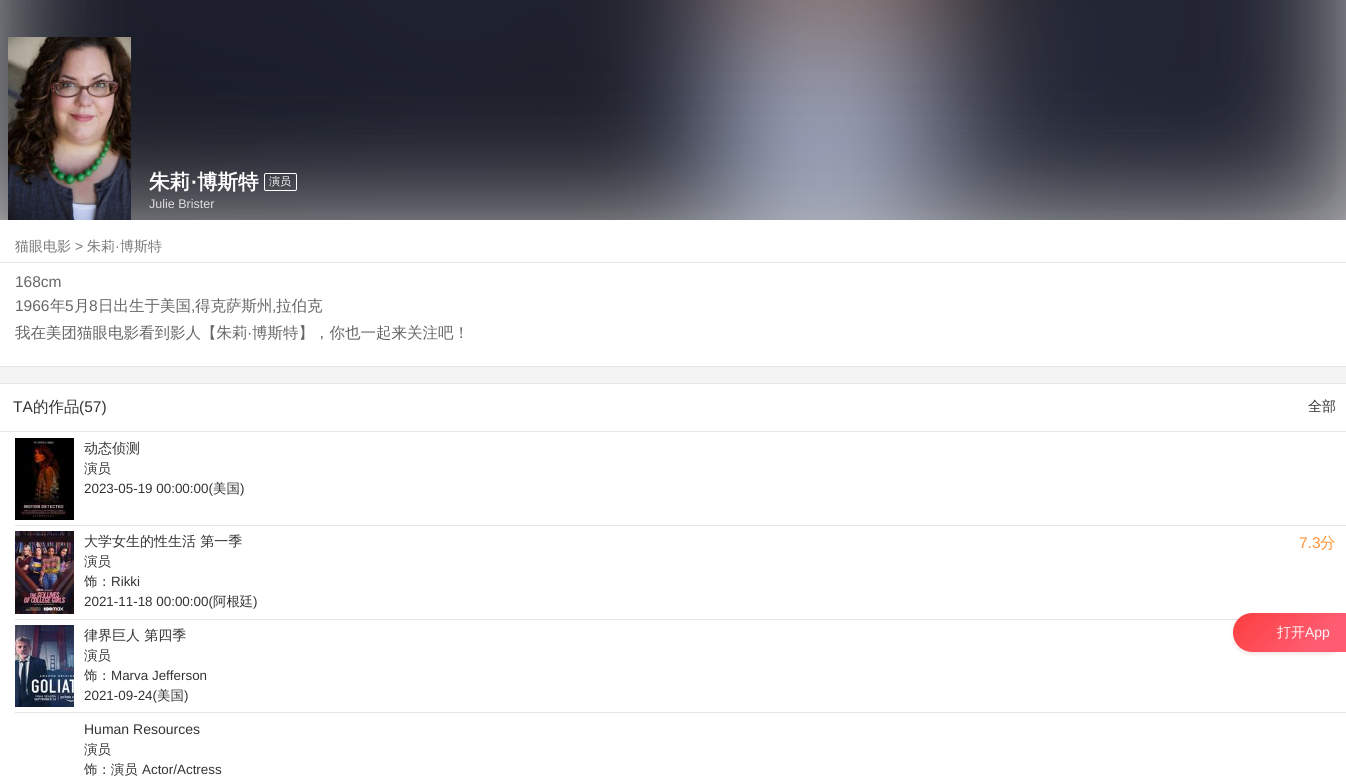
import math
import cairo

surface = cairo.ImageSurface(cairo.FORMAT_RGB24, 1346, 776)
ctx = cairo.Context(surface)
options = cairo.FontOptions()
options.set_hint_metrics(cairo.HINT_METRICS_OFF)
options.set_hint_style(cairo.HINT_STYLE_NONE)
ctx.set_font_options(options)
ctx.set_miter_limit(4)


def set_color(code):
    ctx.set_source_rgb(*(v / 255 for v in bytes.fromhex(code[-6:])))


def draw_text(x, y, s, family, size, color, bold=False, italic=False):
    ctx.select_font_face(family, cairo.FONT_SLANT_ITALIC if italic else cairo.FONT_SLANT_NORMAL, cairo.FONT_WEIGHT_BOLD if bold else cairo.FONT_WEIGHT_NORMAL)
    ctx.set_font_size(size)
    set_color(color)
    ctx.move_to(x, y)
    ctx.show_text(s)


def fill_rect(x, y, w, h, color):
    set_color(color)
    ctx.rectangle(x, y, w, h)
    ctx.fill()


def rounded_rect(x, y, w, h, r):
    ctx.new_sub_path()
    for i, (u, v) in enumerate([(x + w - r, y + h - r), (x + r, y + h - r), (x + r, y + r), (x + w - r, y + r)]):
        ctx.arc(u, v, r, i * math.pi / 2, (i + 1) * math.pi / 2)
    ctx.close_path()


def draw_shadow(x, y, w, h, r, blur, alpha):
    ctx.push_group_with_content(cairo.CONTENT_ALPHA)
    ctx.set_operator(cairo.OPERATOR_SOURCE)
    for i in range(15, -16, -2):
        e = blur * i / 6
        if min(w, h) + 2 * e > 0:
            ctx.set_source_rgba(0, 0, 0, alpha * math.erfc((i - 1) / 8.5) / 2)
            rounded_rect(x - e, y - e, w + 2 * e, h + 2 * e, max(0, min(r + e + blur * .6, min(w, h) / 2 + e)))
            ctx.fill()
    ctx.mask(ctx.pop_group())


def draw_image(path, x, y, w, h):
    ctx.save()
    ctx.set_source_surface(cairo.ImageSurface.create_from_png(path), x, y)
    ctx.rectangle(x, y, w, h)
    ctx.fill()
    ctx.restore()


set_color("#f4f4f4")
ctx.paint()
fill_rect(0, 220, 1346, 146, "#ffffff")
fill_rect(0, 0, 1346, 220, "#cccccc")
fill_rect(0, 366, 1346, 1, "#e5e5e5")
fill_rect(0, 384, 1346, 392, "#ffffff")
fill_rect(0, 383, 1346, 1, "#e6e6e6")
ctx.save()
ctx.rectangle(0, 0, 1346, 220)
ctx.clip()
set_color("#adadad")
draw_shadow(0, -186, 1346, 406, 0, 62, 1)
ctx.restore()
draw_image("assets/img1.png", 0, 0, 1346, 220)
draw_image("assets/img2.png", 8, 37, 123, 183)
draw_text(149, 189, "朱莉", "WenQuanYi Zen Hei", 20.5, "#ffffff", bold=True)
draw_text(191, 189, "·", "Liberation Sans", 20.5, "#ffffff", bold=True)
draw_text(197, 189, "博斯特", "WenQuanYi Zen Hei", 20.5, "#ffffff", bold=True)
rounded_rect(264.5, 173.5, 32, 17, 1.5)
ctx.set_line_width(1)
ctx.stroke()
draw_text(269, 185, "演员", "WenQuanYi Zen Hei Medium", 11, "#ffffff")
draw_text(149, 208, "Julie Brister", "Liberation Sans", 12.5, "#dededf")
draw_text(15, 251, "猫眼电影", "WenQuanYi Zen Hei Medium", 14, "#777777")
draw_text(75, 251, ">", "Liberation Sans", 14, "#777777")
draw_text(87, 251, "朱莉", "WenQuanYi Zen Hei Medium", 14, "#777777")
draw_text(115, 251, "·", "Liberation Sans", 14, "#777777")
draw_text(120, 251, "博斯特", "WenQuanYi Zen Hei Medium", 14, "#777777")
fill_rect(0, 262, 1346, 1, "#e6e6e6")
draw_text(15, 287, "168cm", "Liberation Sans", 15.5, "#666666")
draw_text(15, 311, "1966", "Liberation Sans", 15.5, "#666666")
draw_text(50, 311, "年", "WenQuanYi Zen Hei Medium", 15.5, "#666666")
draw_text(65, 311, "5", "Liberation Sans", 15.5, "#666666")
draw_text(74, 311, "月", "WenQuanYi Zen Hei Medium", 15.5, "#666666")
draw_text(89, 311, "8", "Liberation Sans", 15.5, "#666666")
draw_text(98, 311, "日出生于美国", "WenQuanYi Zen Hei Medium", 15.5, "#666666")
draw_text(191, 311, ",", "Liberation Sans", 15.5, "#666666")
draw_text(195, 311, "得克萨斯州", "WenQuanYi Zen Hei Medium", 15.5, "#666666")
draw_text(272, 311, ",", "Liberation Sans", 15.5, "#666666")
draw_text(276, 311, "拉伯克", "WenQuanYi Zen Hei Medium", 15.5, "#666666")
draw_text(15, 338, "我在美团猫眼电影看到影人【朱莉", "WenQuanYi Zen Hei Medium", 15.5, "#666666")
draw_text(247, 338, "·", "Liberation Sans", 15.5, "#666666")
draw_text(252, 338, "博斯特】，你也一起来关注吧！", "WenQuanYi Zen Hei Medium", 15.5, "#666666")
fill_rect(0, 431, 1346, 1, "#e6e6e6")
draw_text(13, 412, "TA", "Liberation Sans", 15.5, "#333333")
draw_text(33, 412, "的作品", "WenQuanYi Zen Hei Medium", 15.5, "#333333")
draw_text(79, 412, "(57)", "Liberation Sans", 15.5, "#333333")
draw_text(1308, 411, "全部", "WenQuanYi Zen Hei Medium", 14, "#333333")
fill_rect(15, 525, 1331, 1, "#e5e5e5")
draw_image("assets/img3.png", 15, 438, 59, 82)
draw_text(84, 453, "动态侦测", "WenQuanYi Zen Hei Medium", 14, "#333333")
draw_text(84, 473, "演员", "WenQuanYi Zen Hei Medium", 13.4, "#333333")
draw_text(84, 493, "2023-05-19 00:00:00(", "Liberation Sans", 13.4, "#333333")
draw_text(213, 493, "美国", "WenQuanYi Zen Hei Medium", 13.4, "#333333")
draw_text(240, 493, ")", "Liberation Sans", 13.4, "#333333")
fill_rect(15, 619, 1331, 1, "#e5e5e5")
draw_image("assets/img4.png", 15, 531, 59, 83)
draw_text(84, 546, "大学女生的性生活 第一季", "WenQuanYi Zen Hei Medium", 14, "#333333")
draw_text(1299, 548, "7.3", "Liberation Sans", 15.5, "#ff9334")
draw_text(1320, 548, "分", "WenQuanYi Zen Hei Medium", 15.5, "#ff9334")
draw_text(84, 566, "演员", "WenQuanYi Zen Hei Medium", 13.4, "#333333")
draw_text(84, 586, "饰：", "WenQuanYi Zen Hei Medium", 13.4, "#333333")
draw_text(111, 586, "Rikki", "Liberation Sans", 13.4, "#333333")
draw_text(84, 606, "2021-11-18 00:00:00(", "Liberation Sans", 13.4, "#333333")
draw_text(213, 606, "阿根廷", "WenQuanYi Zen Hei Medium", 13.4, "#333333")
draw_text(253, 606, ")", "Liberation Sans", 13.4, "#333333")
fill_rect(15, 712, 1331, 1, "#e5e5e5")
draw_image("assets/img5.png", 15, 625, 59, 82)
draw_text(84, 640, "律界巨人 第四季", "WenQuanYi Zen Hei Medium", 14, "#333333")
draw_text(84, 660, "演员", "WenQuanYi Zen Hei Medium", 13.4, "#333333")
draw_text(84, 680, "饰：", "WenQuanYi Zen Hei Medium", 13.4, "#333333")
draw_text(111, 680, "Marva Jefferson", "Liberation Sans", 13.4, "#333333")
draw_text(84, 700, "2021-09-24(", "Liberation Sans", 13.4, "#333333")
draw_text(157, 700, "美国", "WenQuanYi Zen Hei Medium", 13.4, "#333333")
draw_text(184, 700, ")", "Liberation Sans", 13.4, "#333333")
draw_text(84, 734, "Human Resources", "Liberation Sans", 14, "#333333")
draw_text(84, 754, "演员", "WenQuanYi Zen Hei Medium", 13.4, "#333333")
draw_text(84, 774, "饰：演员", "WenQuanYi Zen Hei Medium", 13.4, "#333333")
draw_text(142, 774, "Actor/Actress", "Liberation Sans", 13.4, "#333333")
ctx.save()
ctx.set_fill_rule(cairo.FILL_RULE_EVEN_ODD)
ctx.new_path()
ctx.move_to(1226, 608)
ctx.line_to(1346, 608)
ctx.line_to(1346, 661)
ctx.line_to(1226, 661)
ctx.close_path()
ctx.move_to(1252.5, 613)
ctx.line_to(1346, 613)
ctx.line_to(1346, 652)
ctx.line_to(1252.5, 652)
ctx.curve_to(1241.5, 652, 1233, 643.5, 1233, 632.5)
ctx.curve_to(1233, 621.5, 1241.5, 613, 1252.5, 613)
ctx.close_path()
ctx.clip()
set_color("#a02c29")
draw_shadow(1233, 615, 113, 39, 19.5, 2, 0.14)
ctx.restore()
gradient = cairo.LinearGradient(1251, 595, 1328, 670)
gradient.add_color_stop_rgba(0, 0.984, 0.2, 0.2, 0.94)
gradient.add_color_stop_rgba(0.75, 1, 0.322, 0.412, 0.94)
ctx.set_source(gradient)
ctx.new_path()
ctx.move_to(1252.5, 613)
ctx.line_to(1346, 613)
ctx.line_to(1346, 652)
ctx.line_to(1252.5, 652)
ctx.curve_to(1241.5, 652, 1233, 643.5, 1233, 632.5)
ctx.curve_to(1233, 621.5, 1241.5, 613, 1252.5, 613)
ctx.close_path()
ctx.fill()
draw_text(1277, 637, "打开", "WenQuanYi Zen Hei Medium", 14, "#fff5f5")
draw_text(1305, 637, "App", "Liberation Sans", 14, "#fff5f5")
surface.write_to_png("output.png")
